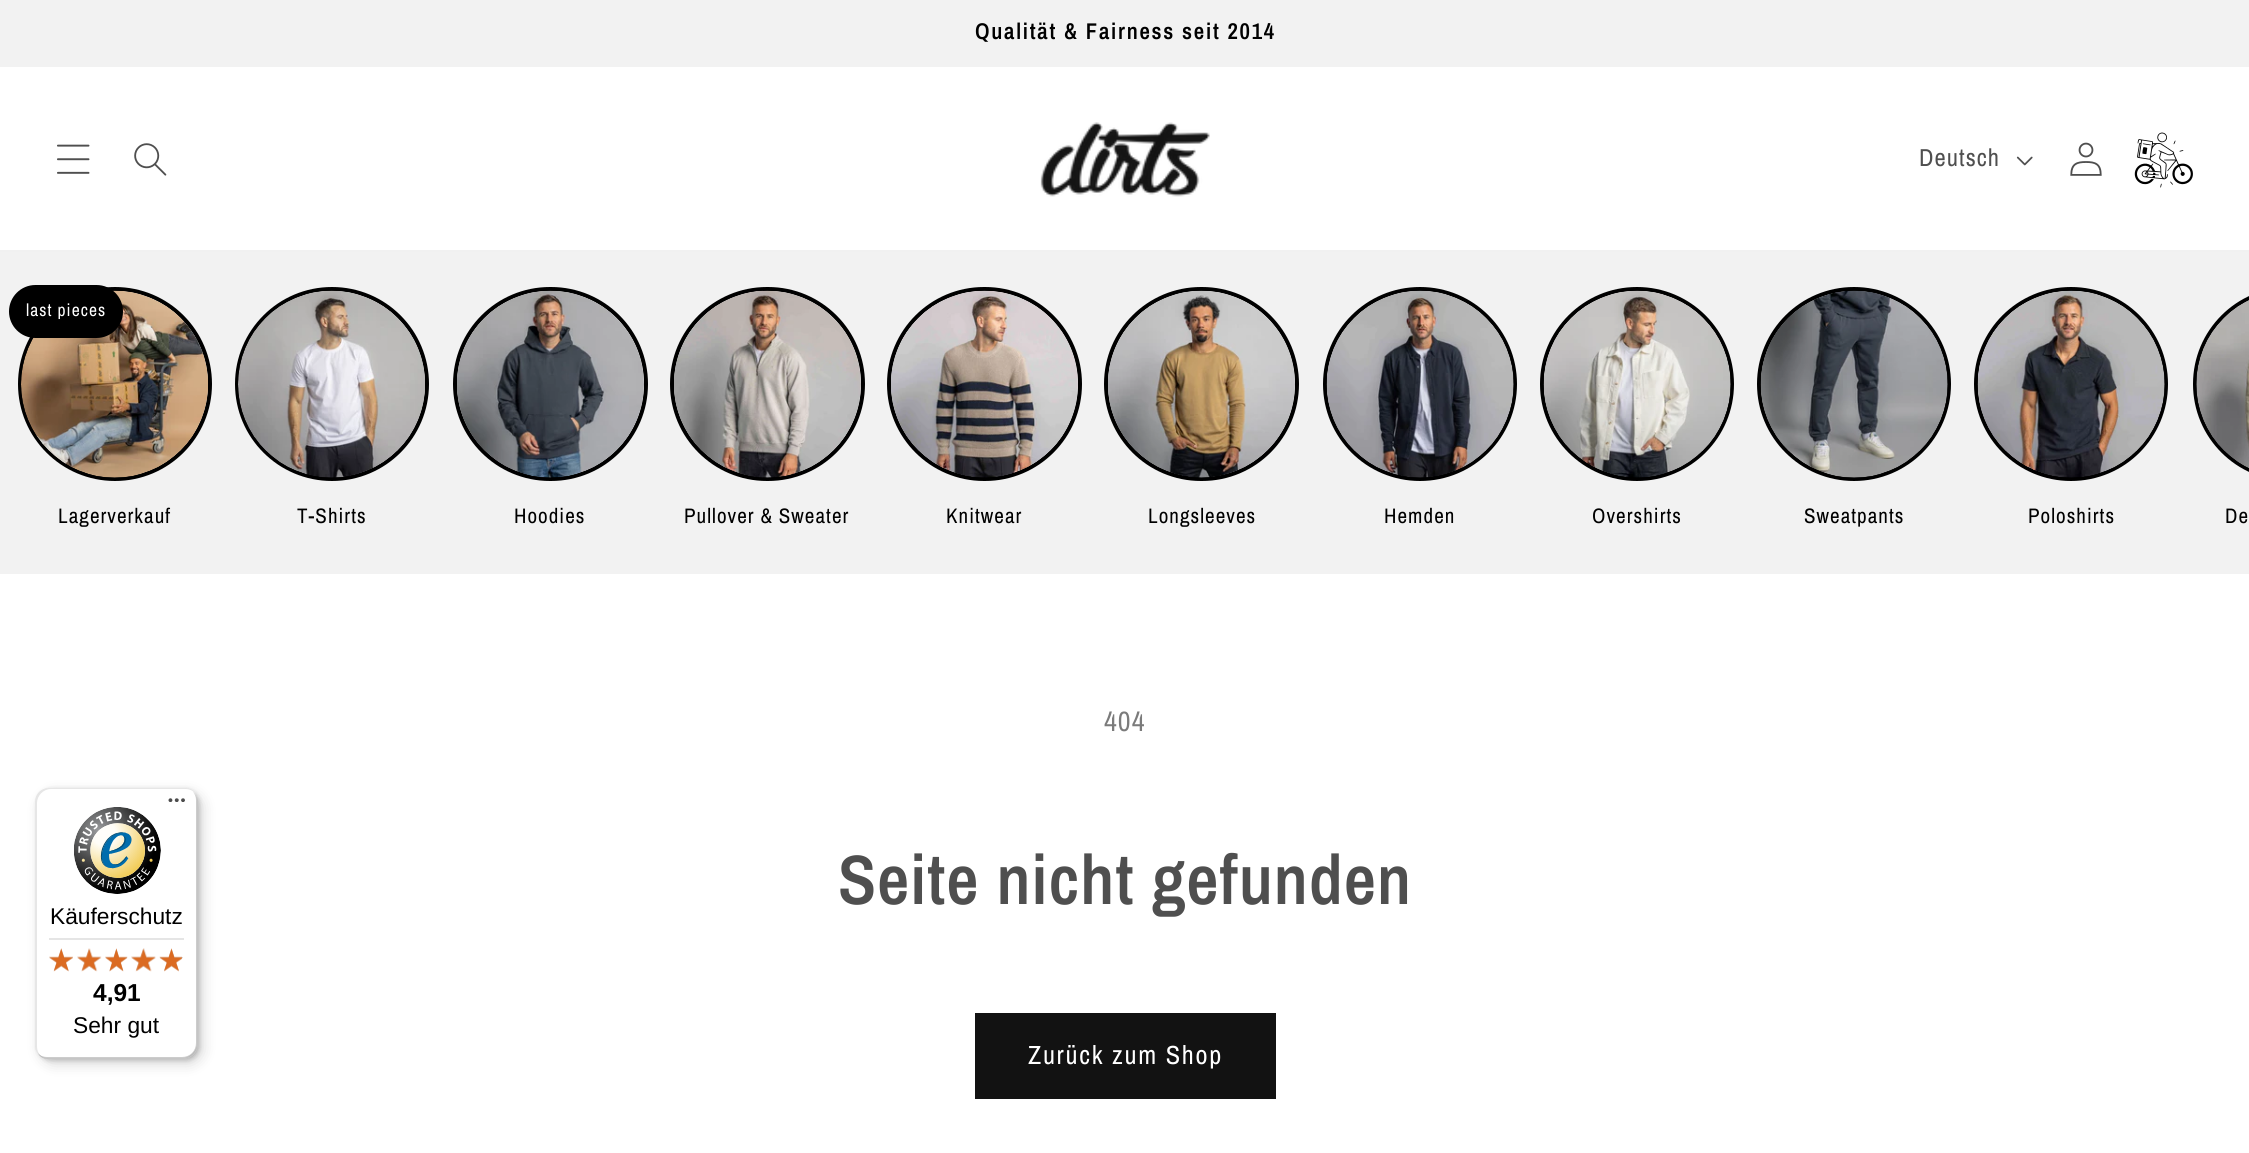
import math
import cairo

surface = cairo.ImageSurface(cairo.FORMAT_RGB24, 2249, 1153)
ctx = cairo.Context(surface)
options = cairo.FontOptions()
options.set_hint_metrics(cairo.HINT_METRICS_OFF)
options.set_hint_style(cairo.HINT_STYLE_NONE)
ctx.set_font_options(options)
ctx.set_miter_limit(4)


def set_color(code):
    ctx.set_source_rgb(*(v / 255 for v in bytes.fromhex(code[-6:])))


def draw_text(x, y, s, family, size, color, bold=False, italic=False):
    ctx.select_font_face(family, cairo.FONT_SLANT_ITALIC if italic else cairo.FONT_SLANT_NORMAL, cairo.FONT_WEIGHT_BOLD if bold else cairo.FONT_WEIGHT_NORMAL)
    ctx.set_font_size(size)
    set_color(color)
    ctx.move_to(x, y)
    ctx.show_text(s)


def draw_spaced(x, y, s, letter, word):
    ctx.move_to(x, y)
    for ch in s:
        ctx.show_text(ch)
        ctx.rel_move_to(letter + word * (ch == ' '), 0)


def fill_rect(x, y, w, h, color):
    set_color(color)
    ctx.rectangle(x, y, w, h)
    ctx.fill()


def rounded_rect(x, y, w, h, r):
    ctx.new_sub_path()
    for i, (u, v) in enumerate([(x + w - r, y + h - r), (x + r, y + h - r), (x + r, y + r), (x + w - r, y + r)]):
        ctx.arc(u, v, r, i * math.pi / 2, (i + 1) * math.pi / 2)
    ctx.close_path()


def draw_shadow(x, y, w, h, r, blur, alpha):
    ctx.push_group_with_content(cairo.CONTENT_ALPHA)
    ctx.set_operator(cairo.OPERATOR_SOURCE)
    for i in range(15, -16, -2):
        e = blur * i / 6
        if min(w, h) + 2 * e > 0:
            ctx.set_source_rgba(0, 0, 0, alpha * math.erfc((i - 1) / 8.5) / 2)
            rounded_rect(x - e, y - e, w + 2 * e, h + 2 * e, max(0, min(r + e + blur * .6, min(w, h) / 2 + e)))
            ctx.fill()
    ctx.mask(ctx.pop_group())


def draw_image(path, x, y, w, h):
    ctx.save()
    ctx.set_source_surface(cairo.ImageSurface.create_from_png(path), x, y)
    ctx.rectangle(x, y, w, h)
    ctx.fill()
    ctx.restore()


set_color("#ffffff")
ctx.paint()
fill_rect(0, 0, 2249, 67, "#f2f2f2")
ctx.select_font_face("Archivo Narrow SemiBold")
ctx.set_font_size(22.75)
set_color("#000000")
draw_spaced(975, 39, "Qualität & Fairness seit 2014", 1.75, 0)
fill_rect(0, 250, 2249, 2, "#f1f1f1")
draw_image("assets/img1.png", 57, 144, 33, 30)
draw_image("assets/img2.png", 134, 143, 33, 33)
draw_image("assets/img3.png", 1040, 122, 170, 75)
ctx.select_font_face("Archivo Narrow")
ctx.set_font_size(24.5)
set_color("#4f4f4f")
draw_spaced(1919, 166, "Deutsch", 1.05, 0)
draw_image("assets/img4.png", 2016, 156, 17, 10)
draw_image("assets/img5.png", 2070, 142, 32, 34)
draw_image("assets/img6.png", 2134, 132, 59, 56)
fill_rect(0, 252, 2249, 322, "#f2f2f2")
ctx.arc(115, 384, 95, 0, 2 * math.pi)
set_color("#000000")
ctx.set_line_width(4)
ctx.stroke()
draw_image("assets/img7.png", 21, 290, 187, 188)
rounded_rect(9, 285, 114, 53, 26.5)
ctx.fill()
ctx.set_font_size(17.5)
set_color("#ffffff")
draw_spaced(26, 316, "last pieces", 1.05, 0)
ctx.set_font_size(21)
set_color("#000000")
draw_spaced(58, 523, "Lagerverkauf", 1.05, 0)
ctx.new_path()
ctx.arc(332, 384, 95, 0, 2 * math.pi)
ctx.stroke()
draw_image("assets/img8.png", 238, 290, 187, 188)
draw_spaced(297, 523, "T-Shirts", 1.05, 0)
rounded_rect(455, 289, 191, 190, 95)
ctx.stroke()
draw_image("assets/img9.png", 457, 290, 187, 188)
draw_spaced(514, 523, "Hoodies", 1.05, 0)
rounded_rect(672, 289, 191, 190, 95)
ctx.stroke()
draw_image("assets/img10.png", 674, 290, 187, 188)
draw_spaced(684, 523, "Pullover & Sweater", 1.05, 0)
rounded_rect(889, 289, 191, 190, 95)
ctx.stroke()
draw_image("assets/img11.png", 891, 290, 187, 188)
draw_spaced(946, 523, "Knitwear", 1.05, 0)
rounded_rect(1106, 289, 191, 190, 95)
ctx.stroke()
draw_image("assets/img12.png", 1108, 290, 187, 188)
draw_spaced(1148, 523, "Longsleeves", 1.05, 0)
ctx.new_path()
ctx.arc(1420, 384, 95, 0, 2 * math.pi)
ctx.stroke()
draw_image("assets/img13.png", 1326, 290, 188, 188)
draw_spaced(1384, 523, "Hemden", 1.05, 0)
ctx.new_path()
ctx.arc(1637, 384, 95, 0, 2 * math.pi)
ctx.stroke()
draw_image("assets/img14.png", 1543, 290, 188, 188)
draw_spaced(1592, 523, "Overshirts", 1.05, 0)
ctx.new_path()
ctx.arc(1854, 384, 95, 0, 2 * math.pi)
ctx.stroke()
draw_image("assets/img15.png", 1760, 290, 188, 188)
draw_spaced(1804, 523, "Sweatpants", 1.05, 0)
ctx.new_path()
ctx.arc(2071, 384, 95, 0, 2 * math.pi)
ctx.stroke()
draw_image("assets/img16.png", 1977, 290, 188, 188)
draw_spaced(2028, 523, "Poloshirts", 1.05, 0)
rounded_rect(2195, 289, 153, 190, 95)
ctx.stroke()
draw_image("assets/img17.png", 2196, 300, 53, 168)
draw_spaced(2225, 523, "De", 1.05, 0)
set_color("#000000")
draw_shadow(40, 793, 163, 271, 14, 7, 0.15)
draw_shadow(37, 789, 163, 272, 14, 2, 0.15)
set_color("#ffffff")
rounded_rect(35, 788, 163, 271, 14)
ctx.fill()
ctx.set_source_rgba(0, 0, 0, 0.1)
ctx.new_path()
ctx.move_to(51, 789)
ctx.line_to(186, 789)
ctx.curve_to(188, 789, 191, 790, 193, 791)
ctx.curve_to(190, 789, 187, 788, 184, 788)
ctx.line_to(49, 788)
ctx.curve_to(41, 788, 35, 794, 35, 802)
ctx.line_to(35, 1045)
ctx.curve_to(35, 1051, 38, 1055, 43, 1058)
ctx.curve_to(39, 1055, 37, 1051, 37, 1046)
ctx.line_to(37, 803)
ctx.curve_to(37, 796, 43, 789, 51, 789)
ctx.close_path()
ctx.fill()
ctx.set_source_rgba(0, 0, 0, 0.2)
ctx.new_path()
ctx.move_to(38, 1053)
ctx.curve_to(40, 1057, 44, 1059, 49, 1059)
ctx.line_to(184, 1059)
ctx.curve_to(192, 1059, 198, 1053, 198, 1045)
ctx.line_to(198, 802)
ctx.curve_to(198, 798, 196, 794, 193, 792)
ctx.curve_to(195, 794, 196, 797, 196, 800)
ctx.line_to(196, 1043)
ctx.curve_to(196, 1051, 190, 1057, 182, 1057)
ctx.line_to(47, 1057)
ctx.curve_to(44, 1057, 40, 1056, 38, 1053)
ctx.close_path()
ctx.fill()
ctx.set_source_rgba(0.196, 0.196, 0.196, 0.2)
ctx.new_path()
ctx.move_to(38, 1053)
ctx.curve_to(40, 1057, 44, 1059, 49, 1059)
ctx.line_to(184, 1059)
ctx.curve_to(192, 1059, 198, 1053, 198, 1045)
ctx.line_to(198, 802)
ctx.curve_to(198, 799, 197, 796, 195, 793)
ctx.curve_to(196, 795, 197, 798, 197, 800)
ctx.line_to(197, 1044)
ctx.curve_to(197, 1051, 190, 1058, 183, 1058)
ctx.line_to(48, 1058)
ctx.curve_to(44, 1058, 40, 1056, 38, 1053)
ctx.close_path()
ctx.fill()
ctx.set_source_rgba(1, 1, 1, 0.3)
ctx.new_path()
ctx.move_to(40, 1055)
ctx.curve_to(42, 1058, 45, 1059, 49, 1059)
ctx.line_to(184, 1059)
ctx.curve_to(192, 1059, 198, 1053, 198, 1045)
ctx.line_to(198, 802)
ctx.curve_to(198, 798, 197, 795, 194, 793)
ctx.curve_to(196, 795, 197, 798, 197, 801)
ctx.line_to(197, 1044)
ctx.curve_to(197, 1052, 191, 1058, 183, 1058)
ctx.line_to(48, 1058)
ctx.curve_to(45, 1058, 42, 1057, 40, 1055)
ctx.close_path()
ctx.fill()
draw_image("assets/img18.png", 168, 798, 17, 4)
draw_image("assets/img19.png", 74, 807, 87, 87)
draw_text(50, 924, "Käuferschutz", "Liberation Sans", 22.75, "#000000")
fill_rect(49, 938, 135, 2, "#e5e5e5")
draw_image("assets/img20.png", 49, 949, 24, 22)
draw_image("assets/img21.png", 77, 948, 24, 23)
draw_image("assets/img22.png", 105, 949, 23, 22)
draw_image("assets/img23.png", 131, 948, 25, 23)
draw_image("assets/img24.png", 159, 949, 24, 22)
draw_image("assets/img25.png", 49, 948, 24, 24)
draw_image("assets/img26.png", 77, 948, 25, 24)
draw_image("assets/img27.png", 105, 948, 23, 24)
draw_image("assets/img28.png", 131, 948, 25, 24)
draw_image("assets/img29.png", 159, 948, 23, 24)
draw_text(93, 1001, "4,91", "Liberation Sans", 24.5, "#000000", bold=True)
draw_text(73, 1033, "Sehr gut", "Liberation Sans", 22.75, "#000000")
ctx.select_font_face("Archivo Narrow")
ctx.set_font_size(28)
set_color("#7b7b7b")
draw_spaced(1104, 731, "404", 1.05, 0)
ctx.select_font_face("Archivo Narrow SemiBold")
ctx.set_font_size(70)
set_color("#4f4f4f")
draw_spaced(838, 904, "Seite nicht gefunden", 1.05, 0)
fill_rect(975, 1013, 301, 86, "#121212")
ctx.select_font_face("Archivo Narrow")
ctx.set_font_size(26.25)
set_color("#ffffff")
draw_spaced(1028, 1064, "Zurück zum Shop", 1.75, 0)
surface.write_to_png("output.png")
